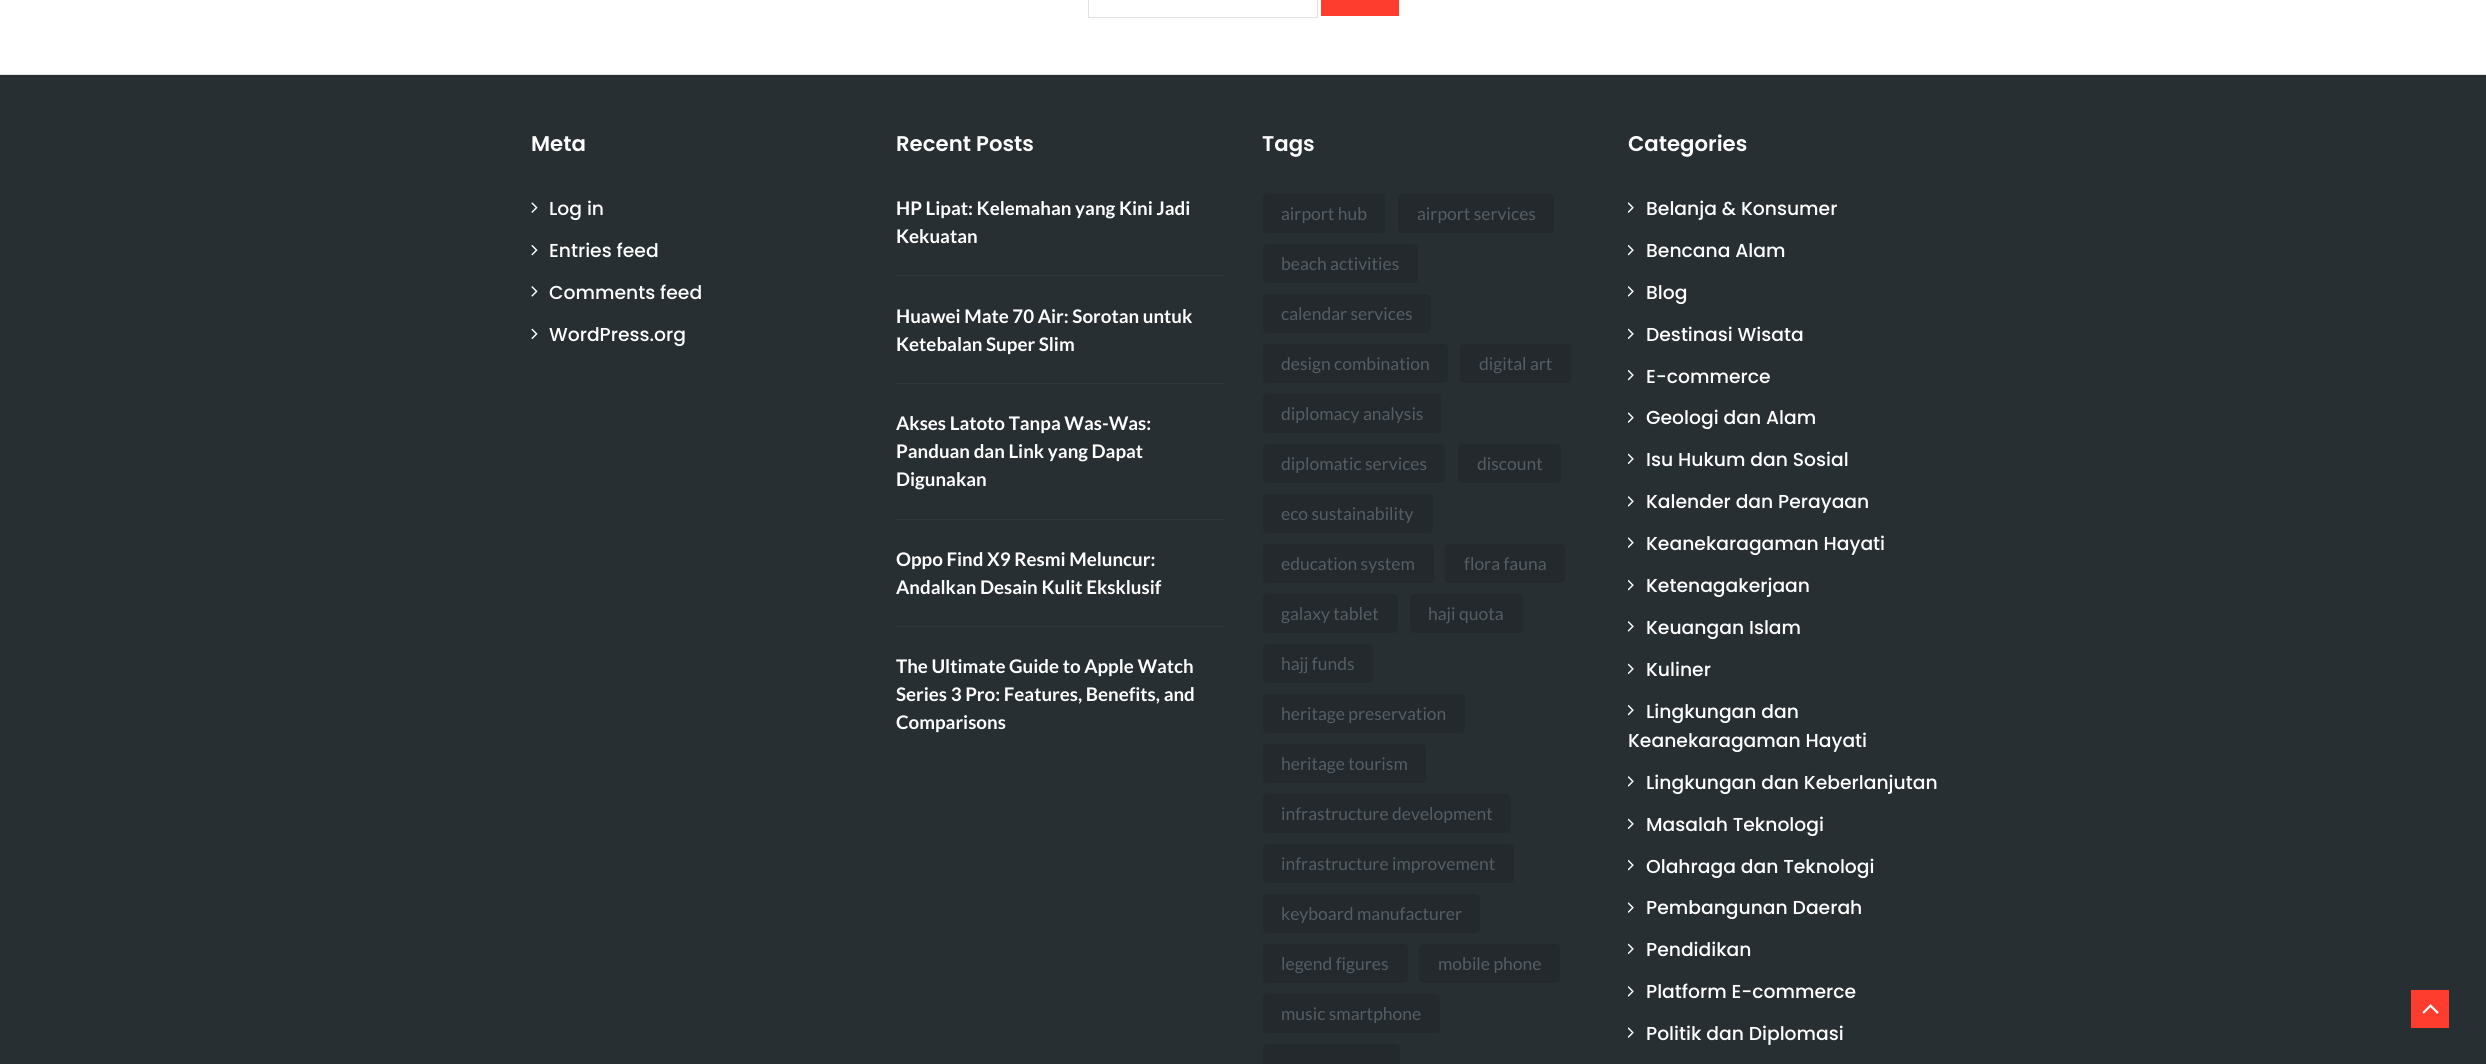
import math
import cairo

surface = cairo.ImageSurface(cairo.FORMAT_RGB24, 2486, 1064)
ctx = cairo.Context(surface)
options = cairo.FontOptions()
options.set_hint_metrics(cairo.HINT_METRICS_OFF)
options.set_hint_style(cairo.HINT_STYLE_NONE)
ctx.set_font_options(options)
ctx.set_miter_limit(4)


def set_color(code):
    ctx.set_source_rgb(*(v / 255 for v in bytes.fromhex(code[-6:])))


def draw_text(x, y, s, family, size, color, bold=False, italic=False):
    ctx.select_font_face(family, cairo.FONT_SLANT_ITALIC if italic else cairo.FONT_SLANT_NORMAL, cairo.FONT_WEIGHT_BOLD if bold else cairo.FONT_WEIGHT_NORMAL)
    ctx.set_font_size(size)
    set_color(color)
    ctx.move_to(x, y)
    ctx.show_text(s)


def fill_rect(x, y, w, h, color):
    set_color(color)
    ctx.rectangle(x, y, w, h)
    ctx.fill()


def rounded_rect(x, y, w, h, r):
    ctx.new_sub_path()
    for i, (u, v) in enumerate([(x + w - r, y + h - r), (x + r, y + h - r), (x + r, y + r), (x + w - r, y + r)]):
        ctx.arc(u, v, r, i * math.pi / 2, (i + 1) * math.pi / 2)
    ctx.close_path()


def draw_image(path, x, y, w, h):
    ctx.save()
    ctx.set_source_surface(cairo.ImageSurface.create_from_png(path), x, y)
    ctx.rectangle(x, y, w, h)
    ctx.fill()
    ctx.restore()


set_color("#ffffff")
ctx.paint()
ctx.rectangle(1088.5, -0.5, 229, 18)
set_color("#e1e1e1")
ctx.set_line_width(1)
ctx.stroke()
fill_rect(1321, 0, 78, 16, "#ff3d2e")
fill_rect(0, 74, 2486, 1, "#e1e1e1")
fill_rect(0, 75, 2486, 989, "#272f32")
draw_text(531, 151, "Meta", "Poppins SemiBold", 21.25, "#ffffff")
draw_image("assets/img1.png", 531, 202, 7, 11)
draw_text(549, 215, "Log in", "Poppins Medium", 18.75, "#ffffff")
draw_image("assets/img2.png", 531, 245, 7, 11)
draw_text(549, 257, "Entries feed", "Poppins Medium", 18.75, "#ffffff")
draw_image("assets/img3.png", 531, 286, 7, 11)
draw_text(549, 299, "Comments feed", "Poppins Medium", 18.75, "#ffffff")
draw_image("assets/img4.png", 531, 328, 7, 12)
draw_text(549, 341, "WordPress.org", "Poppins Medium", 18.75, "#ffffff")
draw_text(896, 151, "Recent Posts", "Poppins SemiBold", 21.25, "#ffffff")
fill_rect(896, 275, 329, 1, "#2f383c")
draw_text(896, 215, "HP Lipat: Kelemahan yang Kini Jadi", "Lato", 18.75, "#ffffff", bold=True)
draw_text(896, 243, "Kekuatan", "Lato", 18.75, "#ffffff", bold=True)
fill_rect(896, 383, 329, 1, "#2f383c")
draw_text(896, 323, "Huawei Mate 70 Air: Sorotan untuk", "Lato", 18.75, "#ffffff", bold=True)
draw_text(896, 351, "Ketebalan Super Slim", "Lato", 18.75, "#ffffff", bold=True)
fill_rect(896, 519, 329, 1, "#2f383c")
draw_text(896, 430, "Akses Latoto Tanpa Was-Was:", "Lato", 18.75, "#ffffff", bold=True)
draw_text(896, 458, "Panduan dan Link yang Dapat", "Lato", 18.75, "#ffffff", bold=True)
draw_text(896, 486, "Digunakan", "Lato", 18.75, "#ffffff", bold=True)
fill_rect(896, 626, 329, 1, "#2f383c")
draw_text(896, 566, "Oppo Find X9 Resmi Meluncur:", "Lato", 18.75, "#ffffff", bold=True)
draw_text(896, 594, "Andalkan Desain Kulit Eksklusif", "Lato", 18.75, "#ffffff", bold=True)
draw_text(896, 673, "The Ultimate Guide to Apple Watch", "Lato", 18.75, "#ffffff", bold=True)
draw_text(896, 701, "Series 3 Pro: Features, Benefits, and", "Lato", 18.75, "#ffffff", bold=True)
draw_text(896, 729, "Comparisons", "Lato", 18.75, "#ffffff", bold=True)
draw_text(1262, 151, "Tags", "Poppins SemiBold", 21.25, "#ffffff")
set_color("#24292e")
rounded_rect(1263, 194, 122, 39, 4)
ctx.fill()
draw_text(1281, 220, "airport hub", "Lato", 17.5, "#545e65")
set_color("#24292e")
rounded_rect(1398, 194, 156, 39, 4)
ctx.fill()
draw_text(1417, 220, "airport services", "Lato", 17.5, "#545e65")
set_color("#24292e")
rounded_rect(1263, 244, 155, 39, 4)
ctx.fill()
draw_text(1281, 270, "beach activities", "Lato", 17.5, "#545e65")
set_color("#24292e")
rounded_rect(1263, 294, 168, 39, 4)
ctx.fill()
draw_text(1281, 320, "calendar services", "Lato", 17.5, "#545e65")
set_color("#24292e")
rounded_rect(1263, 344, 185, 39, 4)
ctx.fill()
draw_text(1281, 370, "design combination", "Lato", 17.5, "#545e65")
set_color("#24292e")
rounded_rect(1460, 344, 111, 39, 4)
ctx.fill()
draw_text(1479, 370, "digital art", "Lato", 17.5, "#545e65")
set_color("#24292e")
rounded_rect(1263, 394, 178, 39, 4)
ctx.fill()
draw_text(1281, 420, "diplomacy analysis", "Lato", 17.5, "#545e65")
set_color("#24292e")
rounded_rect(1263, 444, 182, 39, 4)
ctx.fill()
draw_text(1281, 470, "diplomatic services", "Lato", 17.5, "#545e65")
set_color("#24292e")
rounded_rect(1458, 444, 103, 39, 4)
ctx.fill()
draw_text(1477, 470, "discount", "Lato", 17.5, "#545e65")
set_color("#24292e")
rounded_rect(1263, 494, 170, 39, 4)
ctx.fill()
draw_text(1281, 520, "eco sustainability", "Lato", 17.5, "#545e65")
set_color("#24292e")
rounded_rect(1263, 544, 171, 39, 4)
ctx.fill()
draw_text(1281, 570, "education system", "Lato", 17.5, "#545e65")
set_color("#24292e")
rounded_rect(1445, 544, 120, 39, 4)
ctx.fill()
draw_text(1464, 570, "flora fauna", "Lato", 17.5, "#545e65")
set_color("#24292e")
rounded_rect(1263, 594, 135, 39, 4)
ctx.fill()
draw_text(1281, 620, "galaxy tablet", "Lato", 17.5, "#545e65")
set_color("#24292e")
rounded_rect(1410, 594, 113, 39, 4)
ctx.fill()
draw_text(1428, 620, "haji quota", "Lato", 17.5, "#545e65")
set_color("#24292e")
rounded_rect(1263, 644, 110, 39, 4)
ctx.fill()
draw_text(1281, 670, "hajj funds", "Lato", 17.5, "#545e65")
set_color("#24292e")
rounded_rect(1263, 694, 202, 39, 4)
ctx.fill()
draw_text(1281, 720, "heritage preservation", "Lato", 17.5, "#545e65")
set_color("#24292e")
rounded_rect(1263, 744, 163, 39, 4)
ctx.fill()
draw_text(1281, 770, "heritage tourism", "Lato", 17.5, "#545e65")
set_color("#24292e")
rounded_rect(1263, 794, 248, 39, 4)
ctx.fill()
draw_text(1281, 820, "infrastructure development", "Lato", 17.5, "#545e65")
set_color("#24292e")
rounded_rect(1263, 844, 251, 39, 4)
ctx.fill()
draw_text(1281, 870, "infrastructure improvement", "Lato", 17.5, "#545e65")
set_color("#24292e")
rounded_rect(1263, 894, 217, 39, 4)
ctx.fill()
draw_text(1281, 920, "keyboard manufacturer", "Lato", 17.5, "#545e65")
set_color("#24292e")
rounded_rect(1263, 944, 145, 39, 4)
ctx.fill()
draw_text(1281, 970, "legend figures", "Lato", 17.5, "#545e65")
set_color("#24292e")
rounded_rect(1419, 944, 141, 39, 4)
ctx.fill()
draw_text(1438, 970, "mobile phone", "Lato", 17.5, "#545e65")
set_color("#24292e")
rounded_rect(1263, 994, 177, 39, 4)
ctx.fill()
draw_text(1281, 1020, "music smartphone", "Lato", 17.5, "#545e65")
set_color("#24292e")
rounded_rect(1263, 1044, 137, 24, 4)
ctx.fill()
draw_text(1628, 151, "Categories", "Poppins SemiBold", 21.25, "#ffffff")
draw_image("assets/img5.png", 1628, 202, 6, 11)
draw_text(1646, 215, "Belanja & Konsumer", "Poppins Medium", 18.75, "#ffffff")
draw_image("assets/img6.png", 1628, 245, 6, 11)
draw_text(1646, 257, "Bencana Alam", "Poppins Medium", 18.75, "#ffffff")
draw_image("assets/img7.png", 1628, 286, 6, 11)
draw_text(1646, 299, "Blog", "Poppins Medium", 18.75, "#ffffff")
draw_image("assets/img8.png", 1628, 328, 6, 12)
draw_text(1646, 341, "Destinasi Wisata", "Poppins Medium", 18.75, "#ffffff")
draw_image("assets/img6.png", 1628, 370, 6, 11)
draw_text(1646, 383, "E-commerce", "Poppins Medium", 18.75, "#ffffff")
draw_image("assets/img5.png", 1628, 412, 6, 11)
draw_text(1646, 424, "Geologi dan Alam", "Poppins Medium", 18.75, "#ffffff")
draw_image("assets/img8.png", 1628, 453, 6, 12)
draw_text(1646, 466, "Isu Hukum dan Sosial", "Poppins Medium", 18.75, "#ffffff")
draw_image("assets/img7.png", 1628, 496, 6, 11)
draw_text(1646, 508, "Kalender dan Perayaan", "Poppins Medium", 18.75, "#ffffff")
draw_image("assets/img5.png", 1628, 537, 6, 11)
draw_text(1646, 550, "Keanekaragaman Hayati", "Poppins Medium", 18.75, "#ffffff")
draw_image("assets/img6.png", 1628, 580, 6, 11)
draw_text(1646, 592, "Ketenagakerjaan", "Poppins Medium", 18.75, "#ffffff")
draw_image("assets/img7.png", 1628, 621, 6, 11)
draw_text(1646, 634, "Keuangan Islam", "Poppins Medium", 18.75, "#ffffff")
draw_image("assets/img8.png", 1628, 663, 6, 12)
draw_text(1646, 676, "Kuliner", "Poppins Medium", 18.75, "#ffffff")
draw_image("assets/img6.png", 1628, 705, 6, 11)
draw_text(1646, 718, "Lingkungan dan", "Poppins Medium", 18.75, "#ffffff")
draw_text(1628, 747, "Keanekaragaman Hayati", "Poppins Medium", 18.75, "#ffffff")
draw_image("assets/img7.png", 1628, 776, 6, 11)
draw_text(1646, 789, "Lingkungan dan Keberlanjutan", "Poppins Medium", 18.75, "#ffffff")
draw_image("assets/img8.png", 1628, 818, 6, 12)
draw_text(1646, 831, "Masalah Teknologi", "Poppins Medium", 18.75, "#ffffff")
draw_image("assets/img6.png", 1628, 860, 6, 11)
draw_text(1646, 873, "Olahraga dan Teknologi", "Poppins Medium", 18.75, "#ffffff")
draw_image("assets/img5.png", 1628, 902, 6, 11)
draw_text(1646, 914, "Pembangunan Daerah", "Poppins Medium", 18.75, "#ffffff")
draw_image("assets/img8.png", 1628, 943, 6, 12)
draw_text(1646, 956, "Pendidikan", "Poppins Medium", 18.75, "#ffffff")
draw_image("assets/img7.png", 1628, 986, 6, 11)
draw_text(1646, 998, "Platform E-commerce", "Poppins Medium", 18.75, "#ffffff")
draw_image("assets/img5.png", 1628, 1027, 6, 11)
draw_text(1646, 1040, "Politik dan Diplomasi", "Poppins Medium", 18.75, "#ffffff")
fill_rect(2411, 990, 38, 38, "#ff3d2e")
draw_image("assets/img9.png", 2422, 1004, 17, 10)
surface.write_to_png("output.png")
